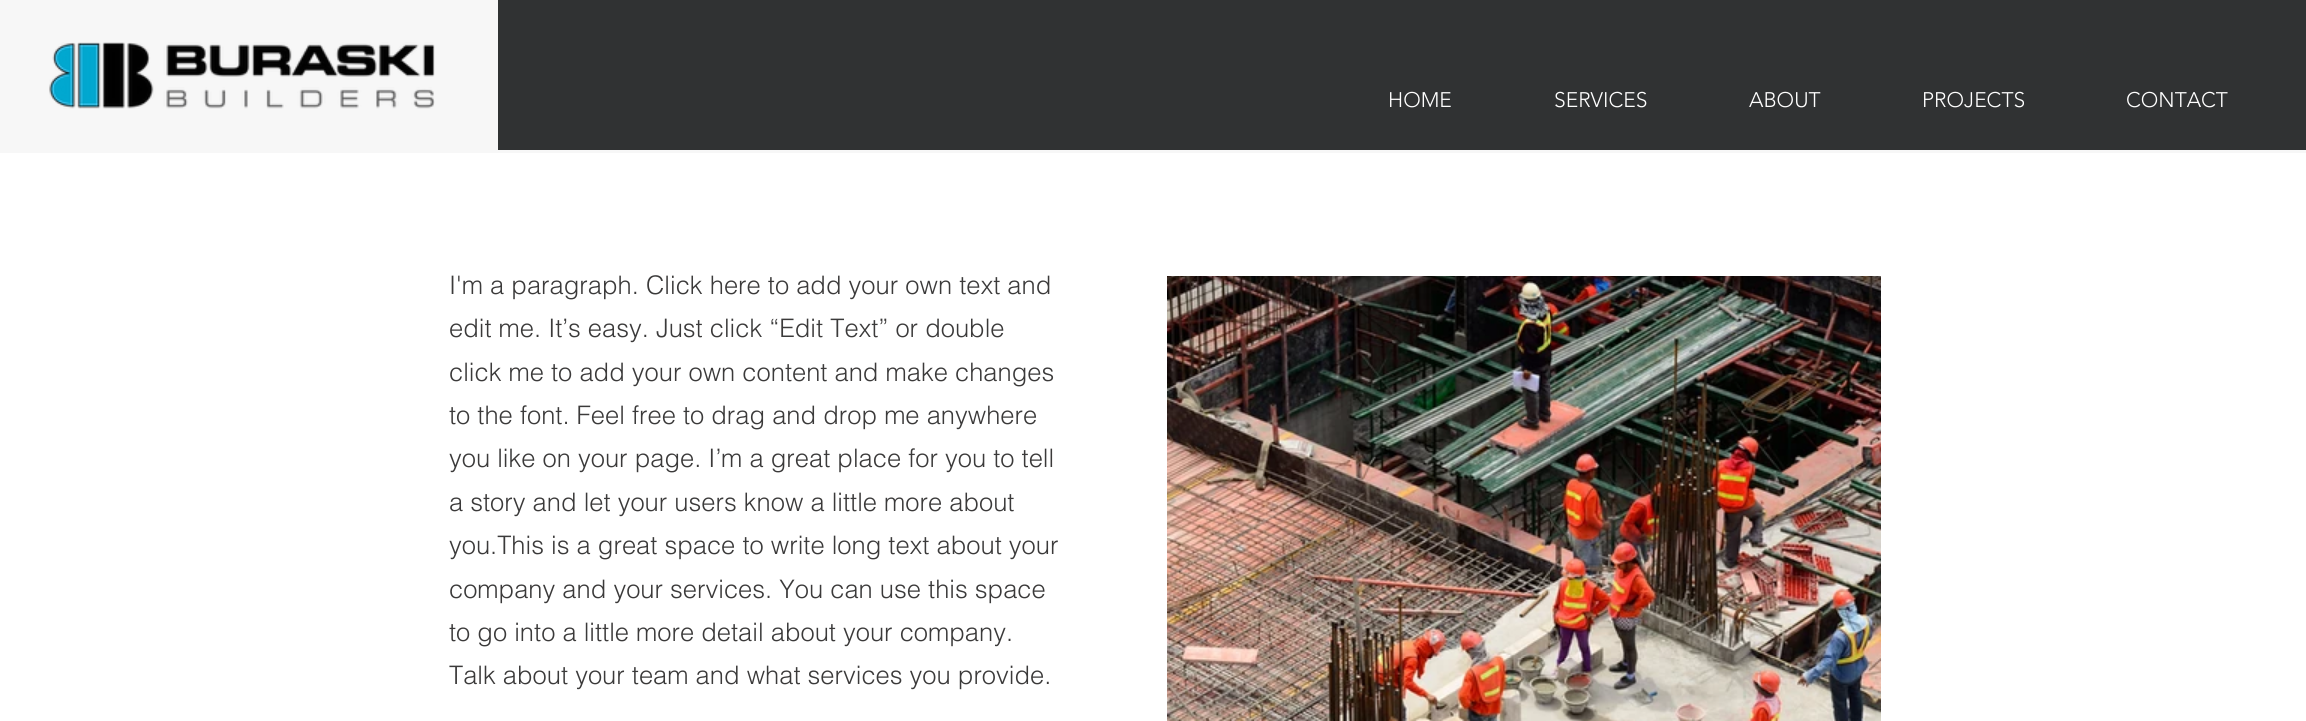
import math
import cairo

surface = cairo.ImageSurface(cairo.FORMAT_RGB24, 2306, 721)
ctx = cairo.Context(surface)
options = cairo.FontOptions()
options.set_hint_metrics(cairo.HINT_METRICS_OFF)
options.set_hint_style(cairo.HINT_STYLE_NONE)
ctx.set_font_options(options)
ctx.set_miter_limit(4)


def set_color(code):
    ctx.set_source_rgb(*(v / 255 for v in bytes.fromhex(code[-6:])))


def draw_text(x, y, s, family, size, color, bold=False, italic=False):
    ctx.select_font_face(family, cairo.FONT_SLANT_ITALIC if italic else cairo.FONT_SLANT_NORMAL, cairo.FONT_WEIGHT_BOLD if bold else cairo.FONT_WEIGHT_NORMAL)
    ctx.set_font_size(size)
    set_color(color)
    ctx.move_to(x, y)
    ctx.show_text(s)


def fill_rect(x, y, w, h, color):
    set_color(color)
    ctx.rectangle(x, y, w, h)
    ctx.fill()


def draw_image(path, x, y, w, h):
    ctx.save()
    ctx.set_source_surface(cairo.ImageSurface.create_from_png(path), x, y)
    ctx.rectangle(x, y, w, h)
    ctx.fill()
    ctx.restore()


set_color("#f7f7f7")
ctx.paint()
draw_image("assets/img1.png", 49, 42, 386, 67)
fill_rect(498, 0, 1808, 150, "#303233")
draw_text(1388, 107, "HOME", "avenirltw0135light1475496 Light", 21, "#ffffff")
draw_text(1554, 107, "SERVICES", "avenirltw0135light1475496 Light", 21, "#ffffff")
draw_text(1749, 107, "ABOUT", "avenirltw0135light1475496 Light", 21, "#ffffff")
draw_text(1922, 107, "PROJECTS", "avenirltw0135light1475496 Light", 21, "#ffffff")
draw_text(2126, 107, "CONTACT", "avenirltw0135light1475496 Light", 21, "#ffffff")
fill_rect(0, 153, 2306, 568, "#ffffff")
draw_text(449, 294, "I'm a paragraph. Click here to add your own text and", "helvetica Light", 25.5, "#3b3a3a")
draw_text(449, 337, "edit me. It’s easy. Just click “Edit Text” or double", "helvetica Light", 25.5, "#3b3a3a")
draw_text(449, 381, "click me to add your own content and make changes", "helvetica Light", 25.5, "#3b3a3a")
draw_text(449, 424, "to the font. Feel free to drag and drop me anywhere", "helvetica Light", 25.5, "#3b3a3a")
draw_text(449, 467, "you like on your page. I’m a great place for you to tell", "helvetica Light", 25.5, "#3b3a3a")
draw_text(449, 511, "a story and let your users know a little more about", "helvetica Light", 25.5, "#3b3a3a")
draw_text(449, 554, "you.This is a great space to write long text about your", "helvetica Light", 25.5, "#3b3a3a")
draw_text(449, 598, "company and your services. You can use this space", "helvetica Light", 25.5, "#3b3a3a")
draw_text(449, 641, "to go into a little more detail about your company.", "helvetica Light", 25.5, "#3b3a3a")
draw_text(449, 684, "Talk about your team and what services you provide.", "helvetica Light", 25.5, "#3b3a3a")
draw_image("assets/img2.png", 1167, 276, 714, 445)
surface.write_to_png("output.png")
